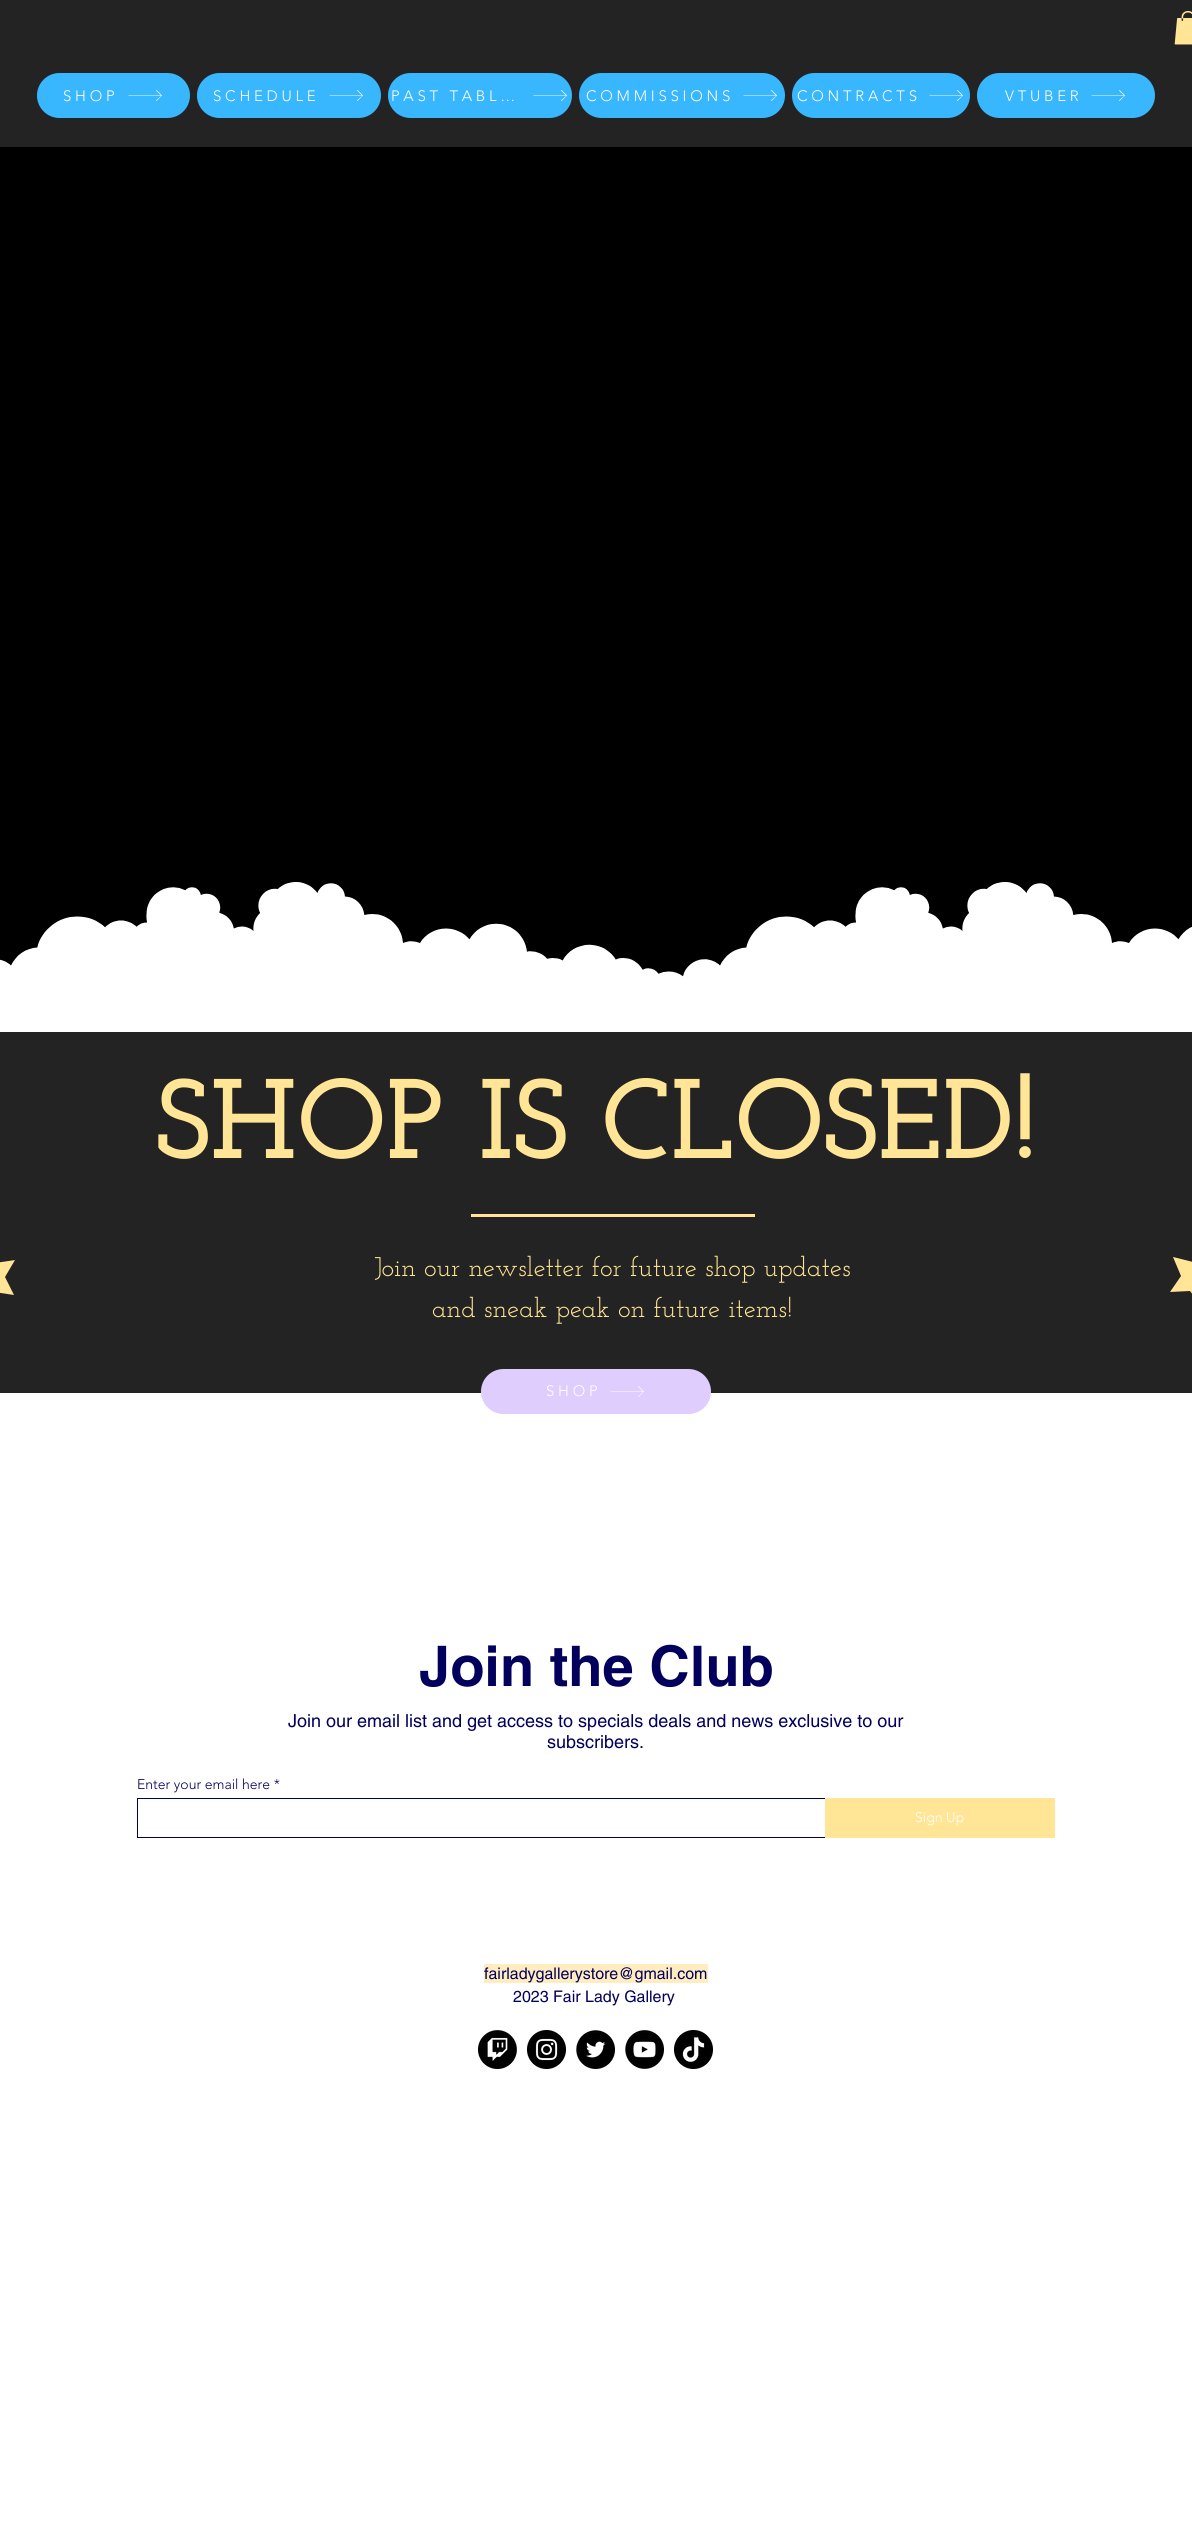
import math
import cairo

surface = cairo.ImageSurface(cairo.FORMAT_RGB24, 1192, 2543)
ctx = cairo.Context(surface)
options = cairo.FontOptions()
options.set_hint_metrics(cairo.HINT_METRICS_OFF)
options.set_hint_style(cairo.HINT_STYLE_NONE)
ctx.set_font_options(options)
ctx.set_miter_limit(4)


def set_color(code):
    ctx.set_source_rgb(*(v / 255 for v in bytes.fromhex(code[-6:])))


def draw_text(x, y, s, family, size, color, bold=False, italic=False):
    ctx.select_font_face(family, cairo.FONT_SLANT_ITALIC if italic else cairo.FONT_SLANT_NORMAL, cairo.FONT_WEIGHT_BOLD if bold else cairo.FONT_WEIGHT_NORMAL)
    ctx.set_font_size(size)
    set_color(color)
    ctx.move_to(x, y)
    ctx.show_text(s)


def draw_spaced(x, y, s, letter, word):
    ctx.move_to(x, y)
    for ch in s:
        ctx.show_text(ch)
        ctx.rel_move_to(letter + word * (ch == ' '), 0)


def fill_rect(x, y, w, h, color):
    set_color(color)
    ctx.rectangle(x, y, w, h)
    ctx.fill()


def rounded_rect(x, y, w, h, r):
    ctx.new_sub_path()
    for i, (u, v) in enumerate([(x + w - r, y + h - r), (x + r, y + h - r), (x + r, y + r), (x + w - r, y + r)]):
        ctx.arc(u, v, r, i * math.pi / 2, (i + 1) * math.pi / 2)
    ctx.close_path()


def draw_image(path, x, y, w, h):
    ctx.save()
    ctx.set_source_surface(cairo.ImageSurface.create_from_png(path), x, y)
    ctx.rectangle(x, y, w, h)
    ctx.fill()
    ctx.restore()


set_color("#ffffff")
ctx.paint()
fill_rect(0, 0, 1192, 147, "#242323")
draw_image("assets/img1.png", 1174, 11, 18, 34)
set_color("#38b6fe")
rounded_rect(37, 73, 153, 45, 22.5)
ctx.fill()
ctx.select_font_face("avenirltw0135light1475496 Light")
ctx.set_font_size(15)
set_color("#ffffff")
draw_spaced(63, 101, "SHOP", 3.75, 0)
ctx.new_path()
ctx.move_to(156.5, 90)
ctx.line_to(156, 90.5)
ctx.line_to(161, 95.5)
ctx.line_to(128.5, 95.5)
ctx.line_to(128.5, 96)
ctx.line_to(161, 96)
ctx.line_to(156, 100.5)
ctx.line_to(156.5, 101)
ctx.line_to(162, 95.5)
ctx.close_path()
ctx.fill()
set_color("#38b6fe")
rounded_rect(197, 73, 184, 45, 22.5)
ctx.fill()
set_color("#ffffff")
draw_spaced(213, 101, "SCHEDULE", 3.75, 0)
ctx.new_path()
ctx.move_to(357.5, 90)
ctx.line_to(357, 90.5)
ctx.line_to(362, 95.5)
ctx.line_to(329.5, 95.5)
ctx.line_to(329.5, 96)
ctx.line_to(362, 96)
ctx.line_to(357, 100.5)
ctx.line_to(357.5, 101)
ctx.line_to(363, 95.5)
ctx.close_path()
ctx.fill()
set_color("#38b6fe")
rounded_rect(388, 73, 184, 45, 22.5)
ctx.fill()
set_color("#ffffff")
draw_spaced(391, 101, "PAST TABL…", 3.75, 0)
ctx.new_path()
ctx.move_to(561.5, 90)
ctx.line_to(561, 90.5)
ctx.line_to(566, 95.5)
ctx.line_to(533.5, 95.5)
ctx.line_to(533.5, 96)
ctx.line_to(566, 96)
ctx.line_to(561, 100.5)
ctx.line_to(561.5, 101)
ctx.line_to(567, 95.5)
ctx.close_path()
ctx.fill()
set_color("#38b6fe")
rounded_rect(579, 73, 206, 45, 22.5)
ctx.fill()
set_color("#ffffff")
draw_spaced(586, 101, "COMMISSIONS", 3.75, 0)
ctx.new_path()
ctx.move_to(771.5, 90)
ctx.line_to(771, 90.5)
ctx.line_to(776, 95.5)
ctx.line_to(743.5, 95.5)
ctx.line_to(743.5, 96)
ctx.line_to(776, 96)
ctx.line_to(771, 100.5)
ctx.line_to(771.5, 101)
ctx.line_to(777, 95.5)
ctx.close_path()
ctx.fill()
set_color("#38b6fe")
rounded_rect(792, 73, 178, 45, 22.5)
ctx.fill()
set_color("#ffffff")
draw_spaced(797, 101, "CONTRACTS", 3.75, 0)
ctx.new_path()
ctx.move_to(957.5, 90)
ctx.line_to(957, 90.5)
ctx.line_to(962, 95.5)
ctx.line_to(929.5, 95.5)
ctx.line_to(929.5, 96)
ctx.line_to(962, 96)
ctx.line_to(957, 100.5)
ctx.line_to(957.5, 101)
ctx.line_to(963, 95.5)
ctx.close_path()
ctx.fill()
set_color("#38b6fe")
rounded_rect(977, 73, 178, 45, 22.5)
ctx.fill()
set_color("#ffffff")
draw_spaced(1005, 101, "VTUBER", 3.75, 0)
ctx.new_path()
ctx.move_to(1119.5, 90)
ctx.line_to(1119, 90.5)
ctx.line_to(1124, 95.5)
ctx.line_to(1091.5, 95.5)
ctx.line_to(1091.5, 96)
ctx.line_to(1124, 96)
ctx.line_to(1119, 100.5)
ctx.line_to(1119.5, 101)
ctx.line_to(1125, 95.5)
ctx.close_path()
ctx.fill()
fill_rect(0, 147, 1192, 830, "#000000")
draw_image("assets/img2.png", 0, 882, 1192, 100)
fill_rect(0, 1032, 1192, 361, "#242323")
draw_text(156, 1158, "SHOP IS CLOSED!", "Josefin Slab", 113, "#ffe595", bold=True)
fill_rect(471, 1214, 284, 3, "#ffe595")
ctx.new_path()
ctx.move_to(-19, 1248)
ctx.line_to(-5, 1263)
ctx.line_to(15, 1260)
ctx.line_to(5, 1277)
ctx.line_to(14, 1295)
ctx.line_to(-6, 1292)
ctx.line_to(-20, 1306)
ctx.line_to(-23, 1286)
ctx.line_to(-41, 1277)
ctx.line_to(-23, 1268)
ctx.close_path()
ctx.fill()
draw_text(374, 1276, "Join our newsletter for future shop updates", "Josefin Slab", 27, "#ffe595")
draw_text(432, 1317, "and sneak peak on future items!", "Josefin Slab", 27, "#ffe595")
ctx.new_path()
ctx.move_to(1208, 1249)
ctx.line_to(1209, 1270)
ctx.line_to(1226, 1280)
ctx.line_to(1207, 1287)
ctx.line_to(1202, 1307)
ctx.line_to(1190, 1291)
ctx.line_to(1170, 1292)
ctx.line_to(1181, 1276)
ctx.line_to(1173, 1257)
ctx.line_to(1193, 1262)
ctx.close_path()
ctx.fill()
set_color("#dfcdfd")
rounded_rect(481, 1369, 230, 45, 22.5)
ctx.fill()
ctx.select_font_face("avenirltw0135light1475496 Light")
ctx.set_font_size(15)
set_color("#ffffff")
draw_spaced(546, 1396, "SHOP", 3.75, 0)
ctx.new_path()
ctx.move_to(638.5, 1386)
ctx.line_to(638, 1386.5)
ctx.line_to(643, 1391.5)
ctx.line_to(610.5, 1391.5)
ctx.line_to(610.5, 1392)
ctx.line_to(643, 1392)
ctx.line_to(638, 1396.5)
ctx.line_to(638.5, 1397)
ctx.line_to(644, 1391.5)
ctx.close_path()
ctx.fill()
draw_text(419, 1686, "Join the Club", "helvetica", 56, "#02005c", bold=True)
draw_text(288, 1727, "Join our email list and get access to specials deals and news exclusive to our", "helvetica", 18, "#02005c")
draw_text(547, 1748, "subscribers.", "helvetica", 18, "#02005c")
draw_text(137, 1789, "Enter your email here *", "avenirltw0135light1475496 Light", 14, "#02005c")
ctx.rectangle(137.5, 1798.5, 688, 39)
ctx.set_line_width(1)
ctx.stroke()
fill_rect(825, 1798, 230, 40, "#ffe595")
draw_text(915, 1822, "Sign Up", "avenirltw0135light1475496 Light", 14, "#ffffff")
fill_rect(484, 1964, 224, 19, "#ffedbf")
draw_text(484, 1979, "fairladygallerystore@gmail.com", "helvetica", 16, "#02005c")
draw_text(513, 2002, "2023 Fair Lady Gallery", "helvetica", 16, "#02005c")
draw_image("assets/img3.png", 478, 2030, 39, 39)
draw_image("assets/img4.png", 527, 2030, 39, 39)
draw_image("assets/img5.png", 576, 2030, 39, 39)
draw_image("assets/img6.png", 625, 2030, 39, 39)
draw_image("assets/img7.png", 674, 2030, 39, 39)
surface.write_to_png("output.png")
